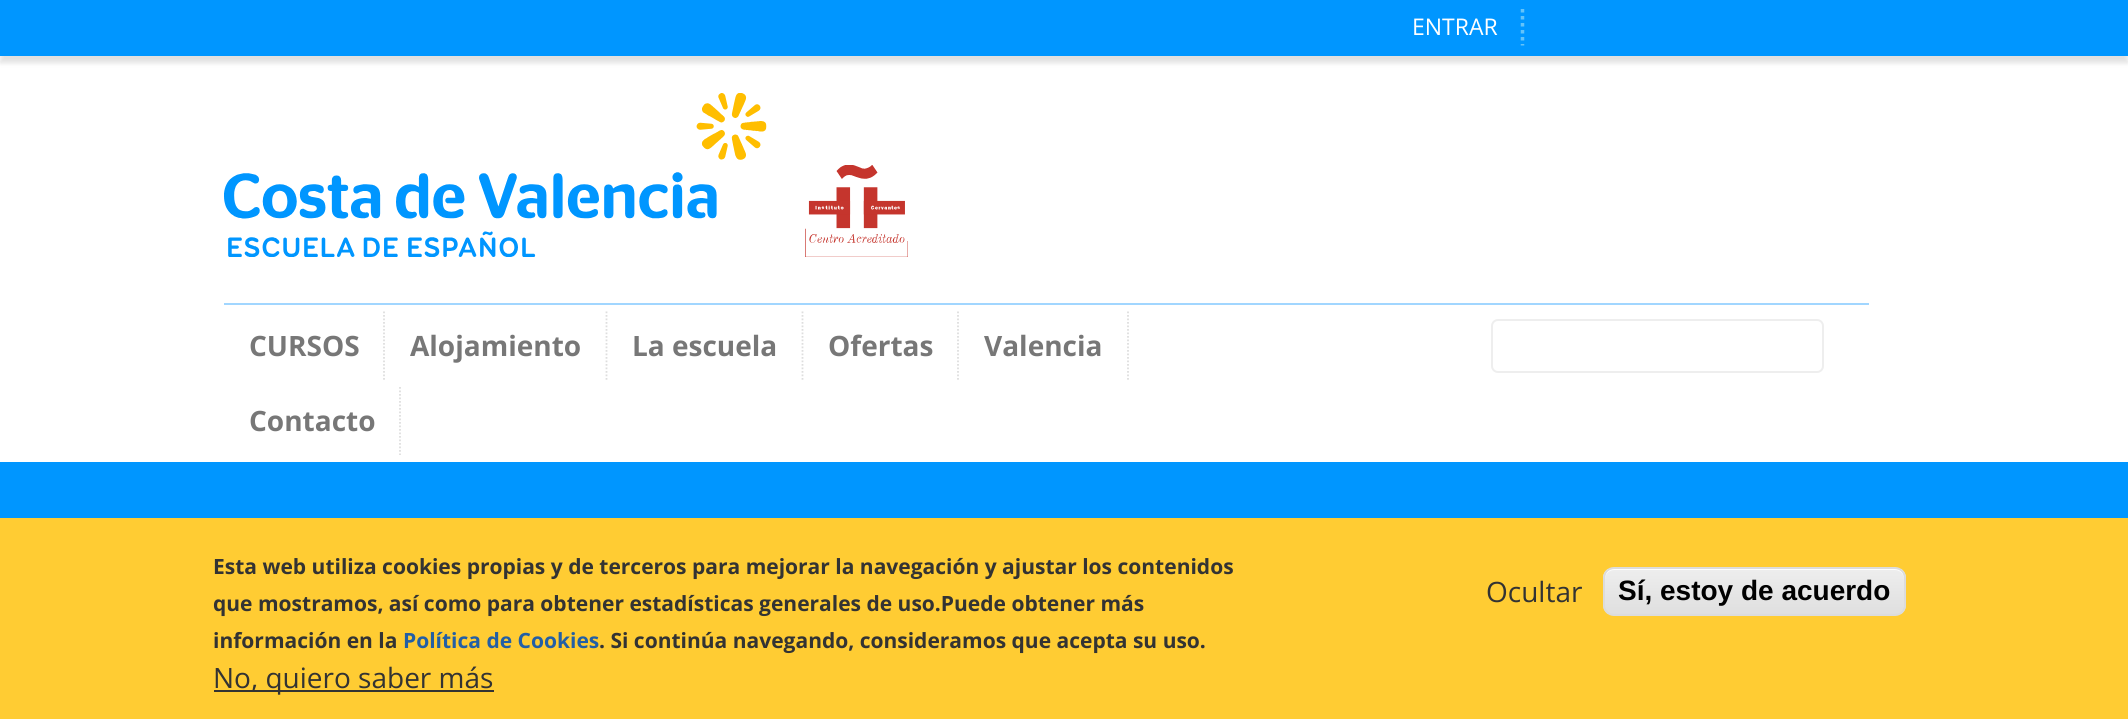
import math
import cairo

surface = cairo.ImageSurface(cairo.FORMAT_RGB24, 2128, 719)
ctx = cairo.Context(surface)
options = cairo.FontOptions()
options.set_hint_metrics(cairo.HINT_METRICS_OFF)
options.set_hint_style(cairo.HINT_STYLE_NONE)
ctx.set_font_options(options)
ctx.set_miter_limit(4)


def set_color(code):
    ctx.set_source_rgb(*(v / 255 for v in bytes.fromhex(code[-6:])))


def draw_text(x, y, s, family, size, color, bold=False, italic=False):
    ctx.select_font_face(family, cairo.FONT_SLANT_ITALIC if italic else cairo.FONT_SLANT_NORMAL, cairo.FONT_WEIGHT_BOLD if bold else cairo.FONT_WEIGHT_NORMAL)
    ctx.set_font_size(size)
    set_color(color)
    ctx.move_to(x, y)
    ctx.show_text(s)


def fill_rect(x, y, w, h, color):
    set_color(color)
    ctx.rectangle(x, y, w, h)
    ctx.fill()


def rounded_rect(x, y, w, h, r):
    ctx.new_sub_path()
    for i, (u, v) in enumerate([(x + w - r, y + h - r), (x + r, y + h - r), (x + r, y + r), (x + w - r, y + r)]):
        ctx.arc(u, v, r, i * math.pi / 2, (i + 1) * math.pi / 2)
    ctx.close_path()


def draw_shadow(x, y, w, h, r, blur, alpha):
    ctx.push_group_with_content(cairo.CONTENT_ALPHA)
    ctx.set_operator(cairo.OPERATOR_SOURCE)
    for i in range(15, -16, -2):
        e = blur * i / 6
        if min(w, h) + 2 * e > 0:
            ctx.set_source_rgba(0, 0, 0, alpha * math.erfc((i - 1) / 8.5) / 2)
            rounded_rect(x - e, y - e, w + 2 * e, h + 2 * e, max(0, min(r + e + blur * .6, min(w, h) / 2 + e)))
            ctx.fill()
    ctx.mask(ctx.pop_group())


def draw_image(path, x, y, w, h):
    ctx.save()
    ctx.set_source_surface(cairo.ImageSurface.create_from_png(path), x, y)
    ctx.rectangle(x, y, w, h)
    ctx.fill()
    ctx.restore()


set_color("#ffffff")
ctx.paint()
set_color("#000000")
draw_shadow(0, 7, 2128, 56, 0, 2.5, 0.12)
fill_rect(0, 0, 2128, 56, "#0096ff")
ctx.new_path()
ctx.move_to(1522.5, 9)
ctx.line_to(1522.5, 45.5)
set_color("#64c3f9")
ctx.set_line_width(3.5)
ctx.set_dash([3.5, 3.5])
ctx.stroke()
draw_text(1412, 35, "ENTRAR", "Open Sans", 23, "#ffffff")
draw_image("assets/img1.png", 224, 93, 543, 164)
draw_image("assets/img2.png", 805, 165, 103, 92)
fill_rect(224, 303, 1645, 2, "#a1d6ff")
ctx.new_path()
ctx.move_to(384, 311.5)
ctx.line_to(384, 380)
set_color("#dedede")
ctx.set_line_width(1.8)
ctx.set_dash([1.75, 1.75])
ctx.stroke()
draw_text(249, 356, "CURSOS", "Open Sans", 28, "#777777", bold=True)
ctx.new_path()
ctx.move_to(606.5, 311.5)
ctx.line_to(606.5, 380)
set_color("#dedede")
ctx.stroke()
draw_text(410, 356, "Alojamiento", "Open Sans", 28, "#777777", bold=True)
ctx.new_path()
ctx.move_to(802.5, 311.5)
ctx.line_to(802.5, 380)
set_color("#dedede")
ctx.stroke()
draw_text(632, 356, "La escuela", "Open Sans", 28, "#777777", bold=True)
ctx.new_path()
ctx.move_to(958, 311.5)
ctx.line_to(958, 380)
set_color("#dedede")
ctx.stroke()
draw_text(828, 356, "Ofertas", "Open Sans", 28, "#777777", bold=True)
ctx.new_path()
ctx.move_to(1128, 311.5)
ctx.line_to(1128, 380)
set_color("#dedede")
ctx.stroke()
draw_text(984, 356, "Valencia", "Open Sans", 28, "#777777", bold=True)
ctx.new_path()
ctx.move_to(400, 387)
ctx.line_to(400, 455)
set_color("#dedede")
ctx.stroke()
draw_text(249, 431, "Contacto", "Open Sans", 28, "#777777", bold=True)
rounded_rect(1492, 320, 331, 52, 6)
set_color("#eeeeee")
ctx.set_line_width(2)
ctx.set_dash([])
ctx.stroke()
fill_rect(0, 462, 2128, 56, "#0096ff")
fill_rect(0, 518, 2128, 201, "#ffcc33")
draw_text(213, 574, "Esta web utiliza cookies propias y de terceros para mejorar la navegación y ajustar los contenidos", "Open Sans", 21, "#333333", bold=True)
draw_text(213, 611, "que mostramos, así como para obtener estadísticas generales de uso.Puede obtener más", "Open Sans", 21, "#333333", bold=True)
draw_text(213, 648, "información en la", "Open Sans", 21, "#333333", bold=True)
draw_text(403, 648, "Política de Cookies", "Open Sans", 21, "#235fa5", bold=True)
draw_text(599, 648, ". Si continúa navegando, consideramos que acepta su uso.", "Open Sans", 21, "#333333", bold=True)
fill_rect(214, 690, 280, 2, "#333333")
draw_text(213, 688, "No, quiero saber más", "Open Sans", 28, "#333333")
draw_text(1486, 602, "Ocultar", "Open Sans", 28, "#333333")
ctx.save()
rounded_rect(1603, 567, 303, 49, 11)
ctx.clip()
gradient = cairo.LinearGradient(1754, 569, 1754, 614)
gradient.add_color_stop_rgba(0.05, 0.929, 0.929, 0.929, 1)
gradient.add_color_stop_rgba(1, 0.875, 0.875, 0.875, 1)
ctx.set_source(gradient)
ctx.rectangle(1603, 569, 303, 45)
ctx.fill()
ctx.restore()
set_color("#ffffff")
ctx.new_path()
ctx.move_to(1614, 570)
ctx.line_to(1895, 570)
ctx.curve_to(1900, 570, 1904, 574, 1904, 579)
ctx.line_to(1904, 578)
ctx.curve_to(1904, 573, 1900, 569, 1895, 569)
ctx.line_to(1614, 569)
ctx.curve_to(1609, 569, 1605, 573, 1605, 578)
ctx.line_to(1605, 579)
ctx.curve_to(1605, 574, 1609, 570, 1614, 570)
ctx.close_path()
ctx.fill()
rounded_rect(1604, 568, 301, 47, 10)
set_color("#dcdcdc")
ctx.stroke()
draw_text(1618, 600, "Sí, estoy de acuerdo", "Liberation Sans", 28, "#000000", bold=True)
surface.write_to_png("output.png")
